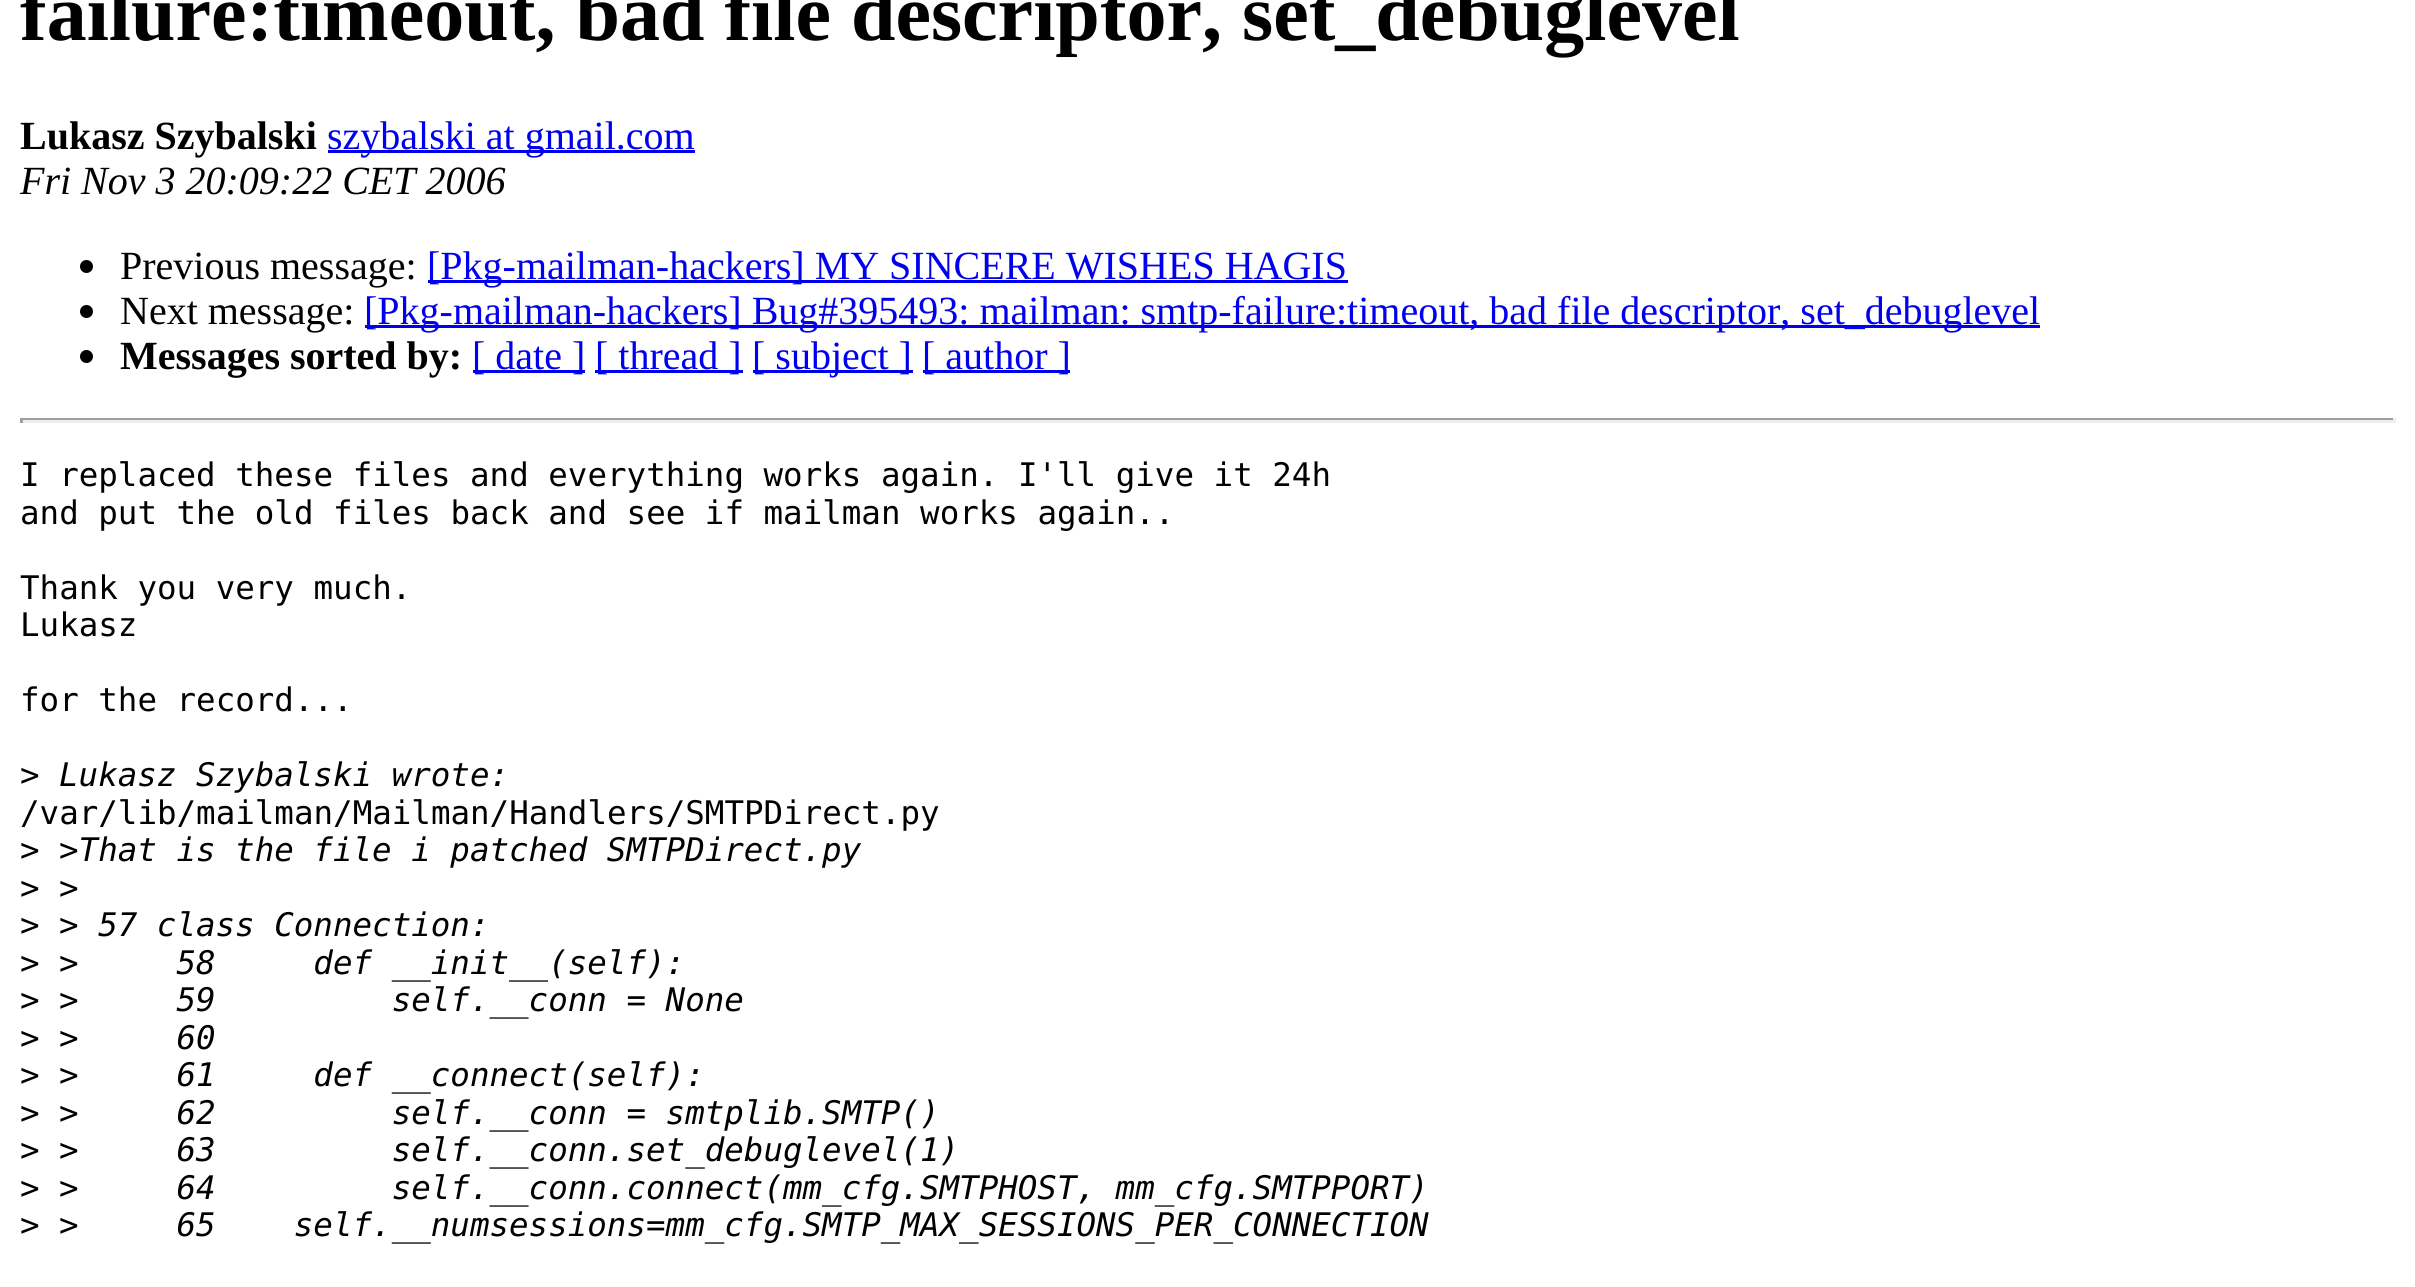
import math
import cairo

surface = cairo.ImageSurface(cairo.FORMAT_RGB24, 2415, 1287)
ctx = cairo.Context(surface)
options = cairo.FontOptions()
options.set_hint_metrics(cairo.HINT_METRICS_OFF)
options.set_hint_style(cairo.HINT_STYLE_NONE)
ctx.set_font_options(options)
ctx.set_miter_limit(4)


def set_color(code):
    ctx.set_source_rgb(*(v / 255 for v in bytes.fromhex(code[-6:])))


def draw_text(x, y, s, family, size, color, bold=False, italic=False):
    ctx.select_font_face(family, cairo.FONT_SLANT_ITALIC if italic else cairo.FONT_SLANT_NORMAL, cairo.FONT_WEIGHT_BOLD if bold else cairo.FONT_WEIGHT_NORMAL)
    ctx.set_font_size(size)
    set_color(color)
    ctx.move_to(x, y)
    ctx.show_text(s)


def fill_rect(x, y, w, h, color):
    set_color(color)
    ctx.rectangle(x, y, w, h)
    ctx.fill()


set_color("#ffffff")
ctx.paint()
draw_text(20, 40, "failure:timeout, bad file descriptor, set_debuglevel", "Liberation Serif", 80, "#000000", bold=True)
draw_text(20, 149, "Lukasz Szybalski", "Liberation Serif", 40, "#000000", bold=True)
fill_rect(328, 150, 367, 3, "#0000ee")
draw_text(327, 149, "szybalski at gmail.com", "Liberation Serif", 40, "#0000ee")
draw_text(20, 194, "Fri Nov 3 20:09:22 CET 2006", "Liberation Serif", 40, "#000000", italic=True)
ctx.new_path()
ctx.arc(86.5, 266.5, 6.5, 0, 2 * math.pi)
ctx.fill()
draw_text(120, 279, "Previous message:", "Liberation Serif", 40, "#000000")
fill_rect(428, 280, 920, 3, "#0000ee")
draw_text(427, 279, "[Pkg-mailman-hackers] MY SINCERE WISHES HAGIS", "Liberation Serif", 40, "#0000ee")
set_color("#000000")
ctx.new_path()
ctx.arc(86.5, 311.5, 6.5, 0, 2 * math.pi)
ctx.fill()
draw_text(120, 324, "Next message:", "Liberation Serif", 40, "#000000")
fill_rect(365, 325, 1675, 3, "#0000ee")
draw_text(364, 324, "[Pkg-mailman-hackers] Bug#395493: mailman: smtp-failure:timeout, bad file descriptor, set_debuglevel", "Liberation Serif", 40, "#0000ee")
set_color("#000000")
ctx.new_path()
ctx.arc(86.5, 356.5, 6.5, 0, 2 * math.pi)
ctx.fill()
draw_text(120, 369, "Messages sorted by:", "Liberation Serif", 40, "#000000", bold=True)
fill_rect(473, 370, 112, 3, "#0000ee")
draw_text(472, 369, "[ date ]", "Liberation Serif", 40, "#0000ee")
fill_rect(595, 370, 148, 3, "#0000ee")
draw_text(595, 369, "[ thread ]", "Liberation Serif", 40, "#0000ee")
fill_rect(753, 370, 160, 3, "#0000ee")
draw_text(752, 369, "[ subject ]", "Liberation Serif", 40, "#0000ee")
fill_rect(923, 370, 147, 3, "#0000ee")
draw_text(922, 369, "[ author ]", "Liberation Serif", 40, "#0000ee")
fill_rect(20, 418, 2375, 2, "#9f9f9f")
fill_rect(2393, 418, 3, 5, "#eeeeee")
fill_rect(20, 420, 2375, 3, "#eeeeee")
fill_rect(20, 418, 3, 5, "#9f9f9f")
draw_text(20, 486, "I replaced these files and everything works again. I'll give it 24h", "DejaVu Sans Mono", 32.5, "#000000")
draw_text(20, 524, "and put the old files back and see if mailman works again..", "DejaVu Sans Mono", 32.5, "#000000")
draw_text(20, 599, "Thank you very much.", "DejaVu Sans Mono", 32.5, "#000000")
draw_text(20, 636, "Lukasz", "DejaVu Sans Mono", 32.5, "#000000")
draw_text(20, 711, "for the record...", "DejaVu Sans Mono", 32.5, "#000000")
draw_text(20, 786, ">", "DejaVu Sans Mono", 32.5, "#000000")
draw_text(59, 786, "Lukasz Szybalski wrote:", "DejaVu Sans Mono", 32.5, "#000000", italic=True)
draw_text(20, 824, "/var/lib/mailman/Mailman/Handlers/SMTPDirect.py", "DejaVu Sans Mono", 32.5, "#000000")
draw_text(20, 861, ">", "DejaVu Sans Mono", 32.5, "#000000")
draw_text(59, 861, ">That is the file i patched SMTPDirect.py", "DejaVu Sans Mono", 32.5, "#000000", italic=True)
draw_text(20, 899, ">", "DejaVu Sans Mono", 32.5, "#000000")
draw_text(59, 899, ">", "DejaVu Sans Mono", 32.5, "#000000", italic=True)
draw_text(20, 936, ">", "DejaVu Sans Mono", 32.5, "#000000")
draw_text(59, 936, "> 57 class Connection:", "DejaVu Sans Mono", 32.5, "#000000", italic=True)
draw_text(20, 974, ">", "DejaVu Sans Mono", 32.5, "#000000")
draw_text(59, 974, ">     58     def __init__(self):", "DejaVu Sans Mono", 32.5, "#000000", italic=True)
draw_text(20, 1011, ">", "DejaVu Sans Mono", 32.5, "#000000")
draw_text(59, 1011, ">     59         self.__conn = None", "DejaVu Sans Mono", 32.5, "#000000", italic=True)
draw_text(20, 1049, ">", "DejaVu Sans Mono", 32.5, "#000000")
draw_text(59, 1049, ">     60", "DejaVu Sans Mono", 32.5, "#000000", italic=True)
draw_text(20, 1086, ">", "DejaVu Sans Mono", 32.5, "#000000")
draw_text(59, 1086, ">     61     def __connect(self):", "DejaVu Sans Mono", 32.5, "#000000", italic=True)
draw_text(20, 1124, ">", "DejaVu Sans Mono", 32.5, "#000000")
draw_text(59, 1124, ">     62         self.__conn = smtplib.SMTP()", "DejaVu Sans Mono", 32.5, "#000000", italic=True)
draw_text(20, 1161, ">", "DejaVu Sans Mono", 32.5, "#000000")
draw_text(59, 1161, ">     63         self.__conn.set_debuglevel(1)", "DejaVu Sans Mono", 32.5, "#000000", italic=True)
draw_text(20, 1199, ">", "DejaVu Sans Mono", 32.5, "#000000")
draw_text(59, 1199, ">     64         self.__conn.connect(mm_cfg.SMTPHOST, mm_cfg.SMTPPORT)", "DejaVu Sans Mono", 32.5, "#000000", italic=True)
draw_text(20, 1236, ">", "DejaVu Sans Mono", 32.5, "#000000")
draw_text(59, 1236, ">     65    self.__numsessions=mm_cfg.SMTP_MAX_SESSIONS_PER_CONNECTION", "DejaVu Sans Mono", 32.5, "#000000", italic=True)
surface.write_to_png("output.png")
